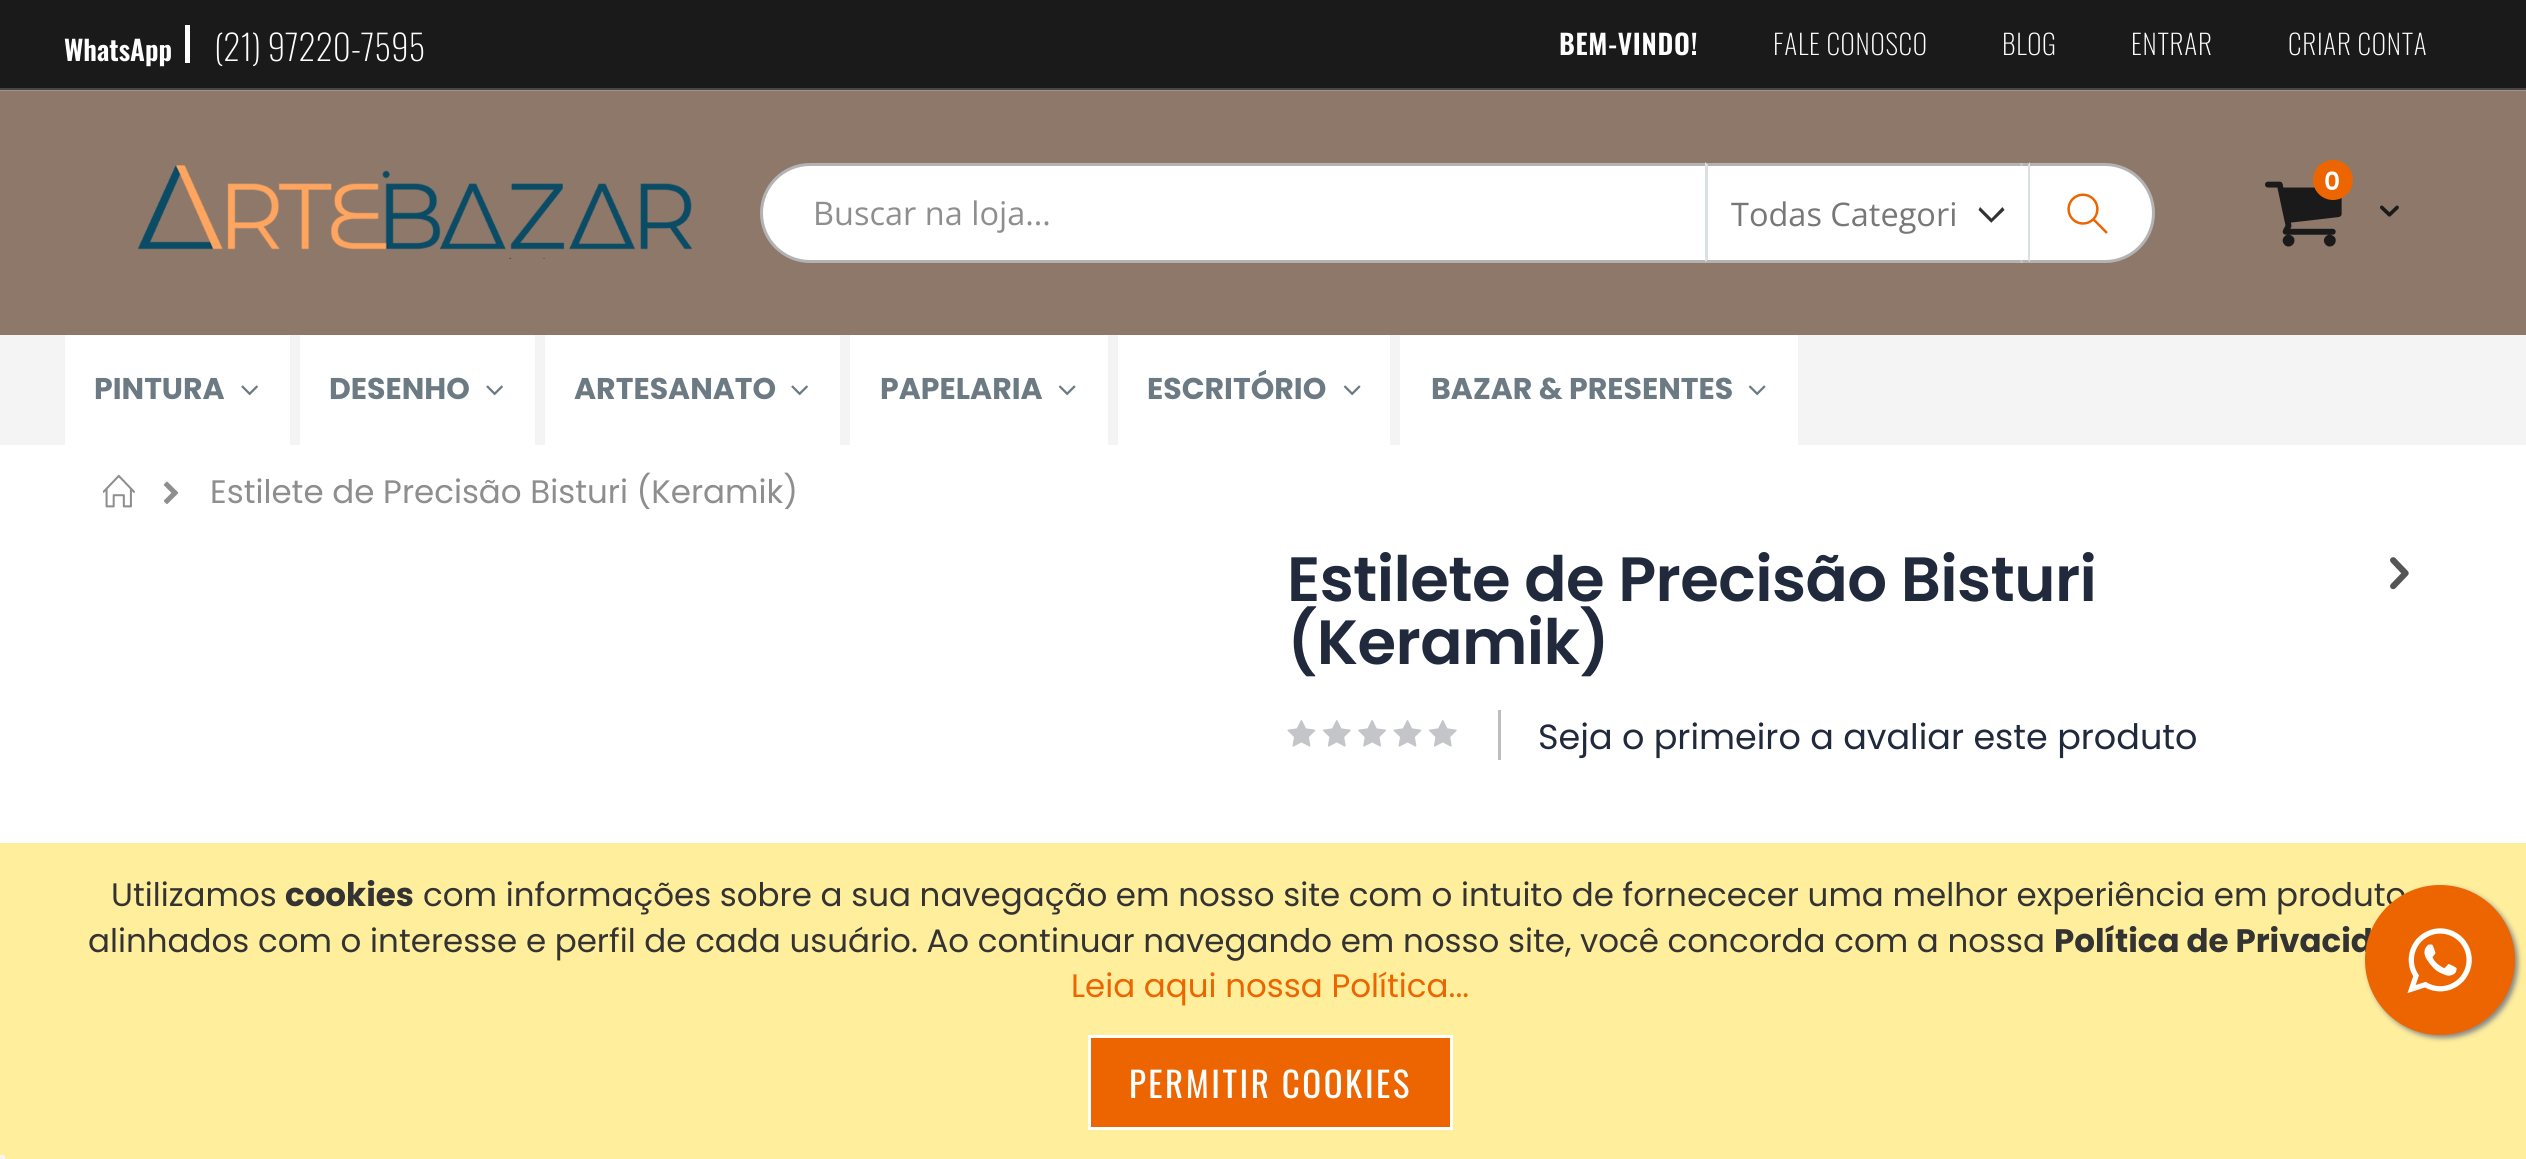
import math
import cairo

surface = cairo.ImageSurface(cairo.FORMAT_RGB24, 2526, 1159)
ctx = cairo.Context(surface)
options = cairo.FontOptions()
options.set_hint_metrics(cairo.HINT_METRICS_OFF)
options.set_hint_style(cairo.HINT_STYLE_NONE)
ctx.set_font_options(options)
ctx.set_miter_limit(4)


def set_color(code):
    ctx.set_source_rgb(*(v / 255 for v in bytes.fromhex(code[-6:])))


def draw_text(x, y, s, family, size, color, bold=False, italic=False):
    ctx.select_font_face(family, cairo.FONT_SLANT_ITALIC if italic else cairo.FONT_SLANT_NORMAL, cairo.FONT_WEIGHT_BOLD if bold else cairo.FONT_WEIGHT_NORMAL)
    ctx.set_font_size(size)
    set_color(color)
    ctx.move_to(x, y)
    ctx.show_text(s)


def draw_spaced(x, y, s, letter, word):
    ctx.move_to(x, y)
    for ch in s:
        ctx.show_text(ch)
        ctx.rel_move_to(letter + word * (ch == ' '), 0)


def fill_rect(x, y, w, h, color):
    set_color(color)
    ctx.rectangle(x, y, w, h)
    ctx.fill()


def rounded_rect(x, y, w, h, r):
    ctx.new_sub_path()
    for i, (u, v) in enumerate([(x + w - r, y + h - r), (x + r, y + h - r), (x + r, y + r), (x + w - r, y + r)]):
        ctx.arc(u, v, r, i * math.pi / 2, (i + 1) * math.pi / 2)
    ctx.close_path()


def draw_shadow(x, y, w, h, r, blur, alpha):
    ctx.push_group_with_content(cairo.CONTENT_ALPHA)
    ctx.set_operator(cairo.OPERATOR_SOURCE)
    for i in range(15, -16, -2):
        e = blur * i / 6
        if min(w, h) + 2 * e > 0:
            ctx.set_source_rgba(0, 0, 0, alpha * math.erfc((i - 1) / 8.5) / 2)
            rounded_rect(x - e, y - e, w + 2 * e, h + 2 * e, max(0, min(r + e + blur * .6, min(w, h) / 2 + e)))
            ctx.fill()
    ctx.mask(ctx.pop_group())


def draw_image(path, x, y, w, h):
    ctx.save()
    ctx.set_source_surface(cairo.ImageSurface.create_from_png(path), x, y)
    ctx.rectangle(x, y, w, h)
    ctx.fill()
    ctx.restore()


set_color("#ffffff")
ctx.paint()
fill_rect(0, 91, 2526, 244, "#8e7869")
fill_rect(0, 90, 2526, 1, "#a39286")
fill_rect(0, 0, 2526, 88, "#1a1a1a")
fill_rect(185, 25, 5, 38, "#ffffff")
draw_text(64, 61, "WhatsApp", "Oswald SemiBold", 27.5, "#ffffff")
draw_text(214, 61, "(21) 97220-7595", "Oswald ExtraLight", 35, "#ffffff")
draw_image("assets/img1.png", 138, 165, 554, 94)
draw_image("assets/img2.png", 2265, 181, 77, 66)
set_color("#ec6500")
ctx.arc(2333, 180, 20, 0, 2 * math.pi)
ctx.fill()
draw_text(2324, 190, "0", "Poppins SemiBold", 25, "#ffffff")
draw_image("assets/img3.png", 2380, 205, 19, 12)
rounded_rect(761.5, 164.5, 1392, 97, 48.5)
ctx.fill_preserve()
set_color("#b3b3b3")
ctx.set_line_width(3)
ctx.stroke()
draw_text(813, 225, "Buscar na loja...", "Open Sans", 32.5, "#8e8e8e")
set_color("#333333")
ctx.set_fill_rule(cairo.FILL_RULE_EVEN_ODD)
ctx.new_path()
ctx.move_to(1991.5, 222.5)
ctx.line_to(2004.5, 210)
ctx.line_to(2002.5, 207)
ctx.line_to(1991.5, 218.5)
ctx.line_to(1980, 207)
ctx.line_to(1978.5, 210)
ctx.line_to(1991.5, 223)
ctx.close_path()
ctx.fill()
set_color("#dbe0e2")
ctx.set_fill_rule(cairo.FILL_RULE_WINDING)
ctx.new_path()
ctx.move_to(2030, 162)
ctx.line_to(2030, 262)
ctx.line_to(2028, 260)
ctx.line_to(2028, 165)
ctx.close_path()
ctx.fill()
ctx.new_path()
ctx.move_to(1705, 262)
ctx.line_to(1705, 162)
ctx.line_to(1708, 165)
ctx.line_to(1708, 260)
ctx.close_path()
ctx.fill()
draw_text(1731, 226, "Todas Categori", "Open Sans", 32.5, "#777777")
ctx.set_source_rgba(1, 1, 1, 0.2)
ctx.rectangle(2020, 163, 3, 100)
ctx.fill()
draw_image("assets/img4.png", 2067, 193, 41, 41)
fill_rect(0, 88, 2526, 2, "#464646")
ctx.select_font_face("Oswald SemiBold")
ctx.set_font_size(27.5)
set_color("#ffffff")
draw_spaced(1559, 55, "BEM-VINDO!", 0.75, 0)
ctx.select_font_face("Oswald ExtraLight")
draw_spaced(1773, 55, "FALE CONOSCO", 0.75, 0)
draw_spaced(2002, 55, "BLOG", 0.75, 0)
draw_spaced(2131, 55, "ENTRAR", 0.75, 0)
draw_spaced(2288, 55, "CRIAR CONTA", 0.75, 0)
fill_rect(0, 335, 2526, 110, "#f4f4f4")
fill_rect(65, 335, 225, 110, "#ffffff")
draw_text(94, 399, "PINTURA", "Poppins", 30, "#6b7a83", bold=True)
draw_image("assets/img5.png", 241, 385, 17, 11)
fill_rect(300, 335, 235, 110, "#ffffff")
draw_text(329, 399, "DESENHO", "Poppins", 30, "#6b7a83", bold=True)
draw_image("assets/img5.png", 486, 385, 17, 11)
fill_rect(545, 335, 295, 110, "#ffffff")
draw_text(574, 399, "ARTESANATO", "Poppins", 30, "#6b7a83", bold=True)
draw_image("assets/img5.png", 791, 385, 17, 11)
fill_rect(850, 335, 258, 110, "#ffffff")
draw_text(880, 399, "PAPELARIA", "Poppins", 30, "#6b7a83", bold=True)
draw_image("assets/img6.png", 1058, 385, 18, 11)
fill_rect(1118, 335, 272, 110, "#ffffff")
draw_text(1147, 399, "ESCRITÓRIO", "Poppins", 30, "#6b7a83", bold=True)
draw_image("assets/img6.png", 1343, 385, 18, 11)
fill_rect(1400, 335, 398, 110, "#ffffff")
draw_text(1431, 399, "BAZAR & PRESENTES", "Poppins", 30, "#6b7a83", bold=True)
draw_image("assets/img6.png", 1748, 385, 18, 11)
draw_image("assets/img7.png", 103, 474, 32, 34)
draw_image("assets/img8.png", 163, 481, 16, 23)
draw_text(210, 503, "Estilete de Precisão Bisturi (Keramik)", "Poppins", 32.5, "#8e8e8e")
ctx.select_font_face("Poppins SemiBold")
ctx.set_font_size(62.5)
set_color("#21293c")
draw_spaced(1287, 601, "Estilete de Precisão Bisturi", -0.6, 0)
draw_spaced(1287, 664, "(Keramik)", -0.6, 0)
draw_image("assets/img9.png", 2390, 557, 19, 33)
draw_image("assets/img10.png", 1287, 720, 170, 27)
fill_rect(1498, 710, 3, 50, "#bdbdbd")
draw_text(1538, 749, "Seja o primeiro a avaliar este produto", "Poppins", 35, "#21293c")
fill_rect(0, 843, 2526, 316, "#ffee9c")
draw_text(111, 906, "Utilizamos", "Poppins", 32.5, "#333333")
draw_text(285, 906, "cookies", "Poppins", 32.5, "#333333", bold=True)
draw_text(423, 906, "com informações sobre a sua navegação em nosso site com o intuito de fornececer uma melhor experiência em produto", "Poppins", 32.5, "#333333")
draw_text(88, 952, "alinhados com o interesse e perfil de cada usuário. Ao continuar navegando em nosso site, você concorda com a nossa", "Poppins", 32.5, "#333333")
draw_text(2054, 952, "Política de Privacid", "Poppins", 32.5, "#333333", bold=True)
draw_text(1071, 997, "Leia aqui nossa Política...", "Poppins", 32.5, "#ec6500")
ctx.rectangle(1089.5, 1036.5, 362, 92)
ctx.fill_preserve()
set_color("#ffffff")
ctx.stroke()
ctx.select_font_face("Oswald")
ctx.set_font_size(35)
draw_spaced(1129, 1098, "PERMITIR COOKIES", 2.5, 0)
set_color("#888888")
draw_shadow(2368, 888, 150, 150, 75, 2.5, 1)
set_color("#ec6500")
ctx.arc(2440, 960, 75, 0, 2 * math.pi)
ctx.fill()
draw_image("assets/img11.png", 2407, 928, 65, 65)
fill_rect(0, 1155, 5, 4, "#f5f5f5")
surface.write_to_png("output.png")
